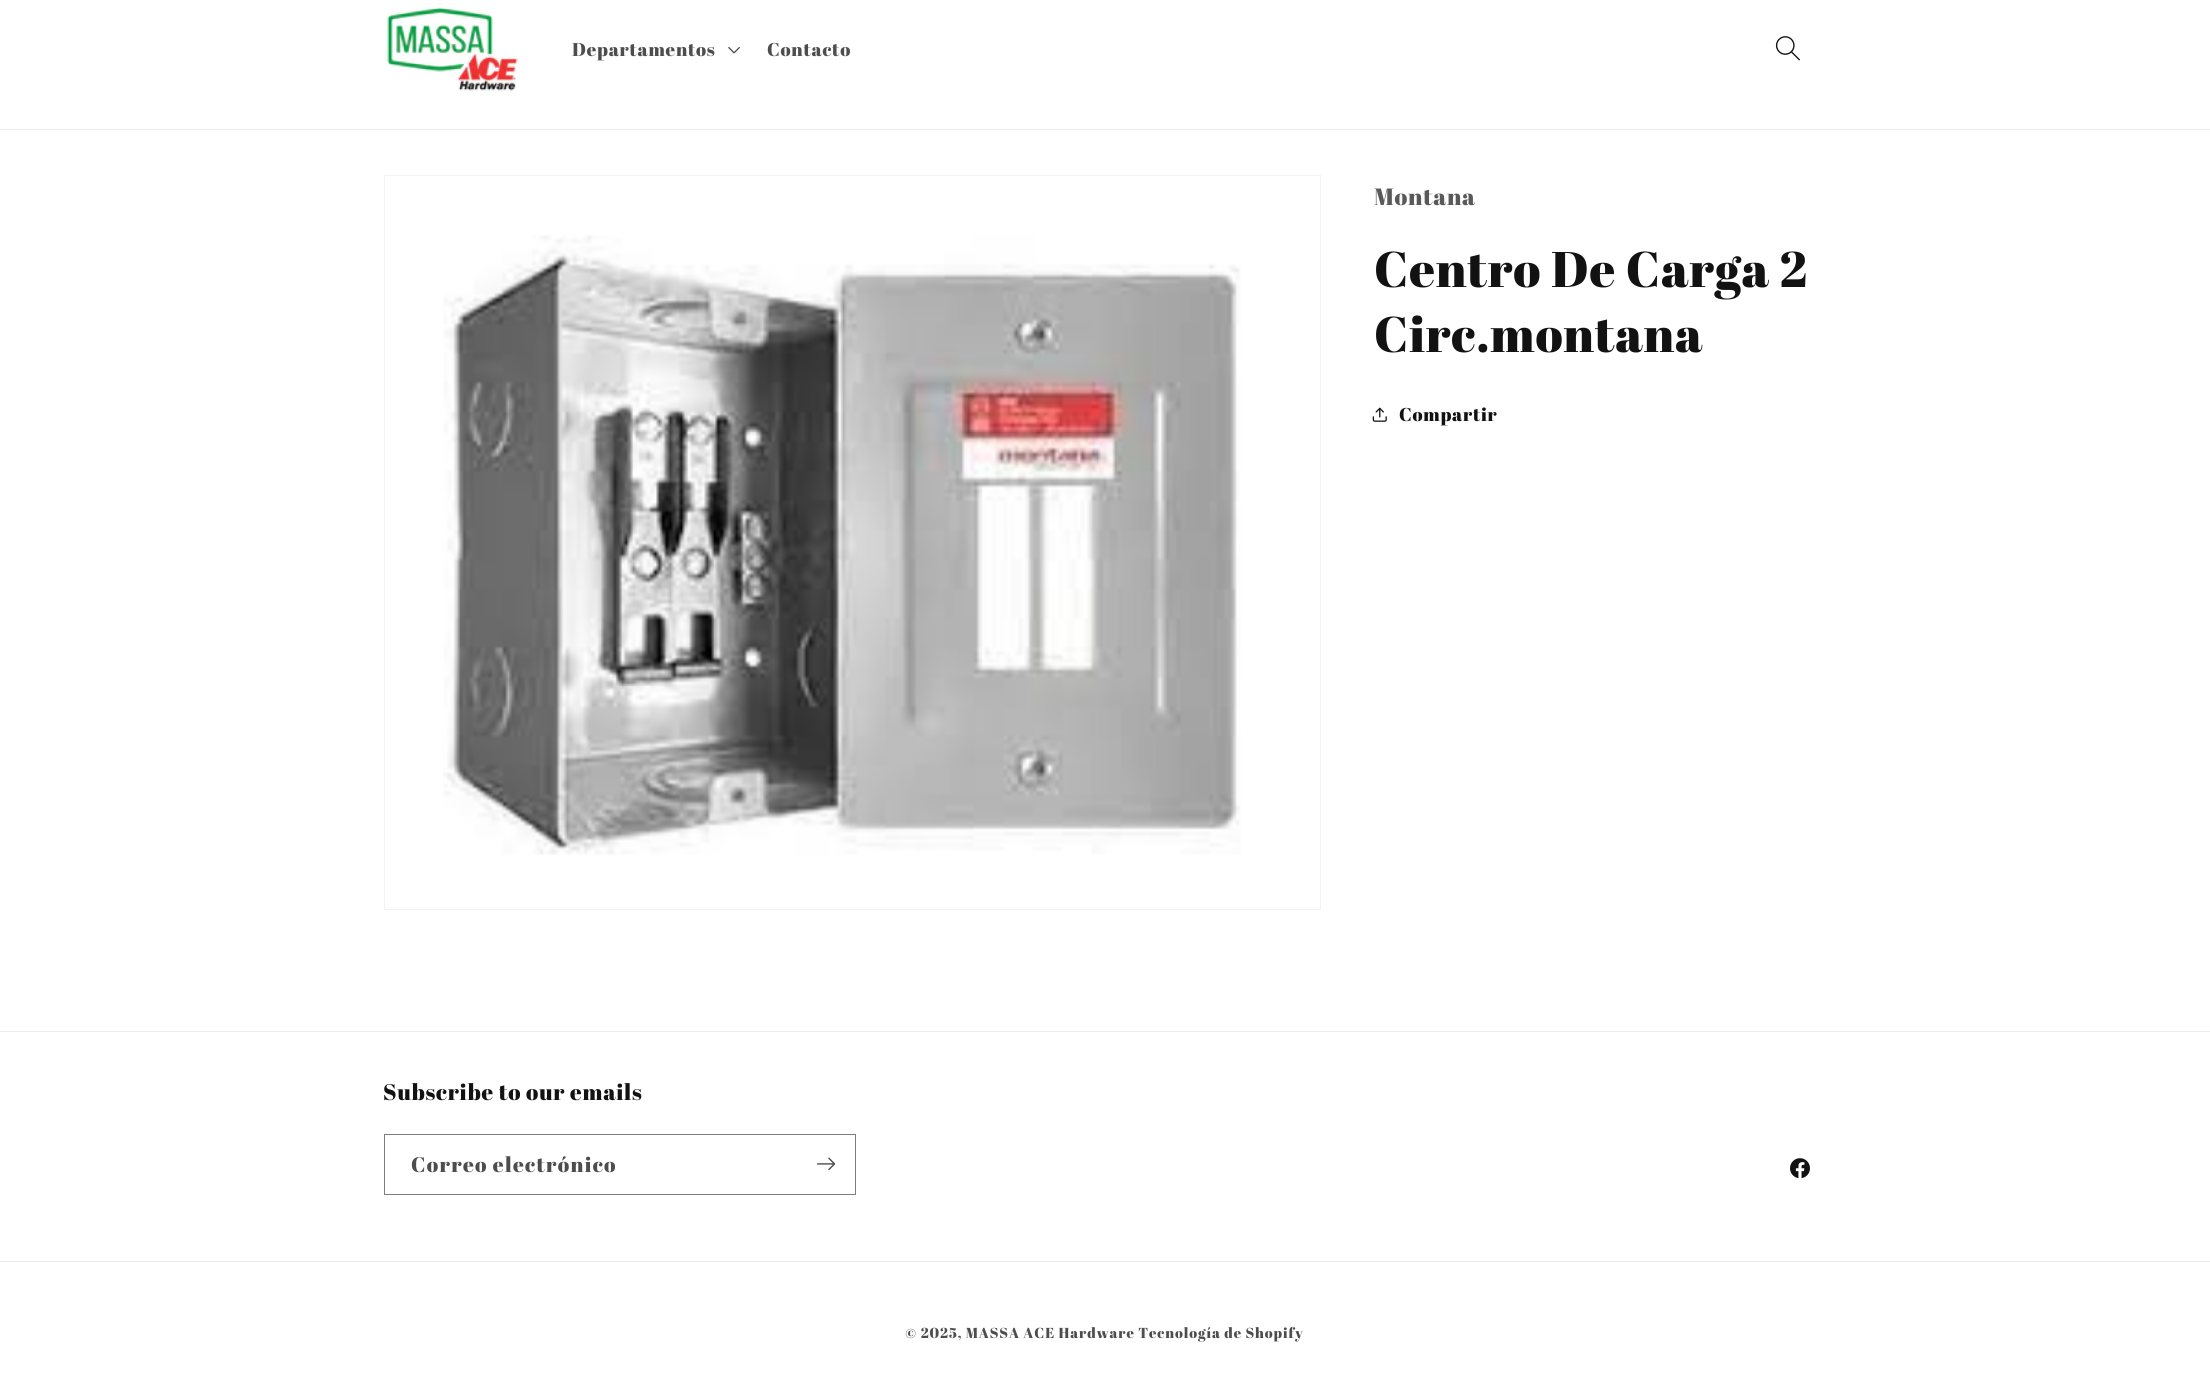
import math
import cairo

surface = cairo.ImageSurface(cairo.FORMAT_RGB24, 2210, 1374)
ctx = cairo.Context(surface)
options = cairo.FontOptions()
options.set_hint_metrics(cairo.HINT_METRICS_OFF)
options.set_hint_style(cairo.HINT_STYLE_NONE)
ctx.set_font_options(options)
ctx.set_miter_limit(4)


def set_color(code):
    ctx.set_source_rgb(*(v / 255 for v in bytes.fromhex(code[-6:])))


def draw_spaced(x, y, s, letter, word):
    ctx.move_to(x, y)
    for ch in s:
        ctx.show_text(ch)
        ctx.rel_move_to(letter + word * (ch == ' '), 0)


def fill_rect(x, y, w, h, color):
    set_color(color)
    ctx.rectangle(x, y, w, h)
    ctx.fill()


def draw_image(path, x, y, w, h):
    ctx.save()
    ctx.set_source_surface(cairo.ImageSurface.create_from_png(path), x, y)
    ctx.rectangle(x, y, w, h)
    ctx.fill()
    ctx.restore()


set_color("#ffffff")
ctx.paint()
fill_rect(0, 129, 2210, 1, "#ececec")
draw_image("assets/img1.png", 385, 7, 135, 86)
ctx.select_font_face("Abril Fatface")
ctx.set_font_size(18.5)
set_color("#4d4d4d")
draw_spaced(572, 56, "Departamentos", 0.75, 0)
draw_image("assets/img2.png", 728, 47, 12, 7)
draw_spaced(767, 56, "Contacto", 0.75, 0)
draw_image("assets/img3.png", 1775, 36, 25, 25)
ctx.rectangle(384.5, 175.5, 936, 734)
set_color("#f3f3f3")
ctx.set_line_width(1)
ctx.stroke()
draw_image("assets/img4.png", 443, 235, 798, 620)
ctx.set_font_size(23.5)
set_color("#595959")
draw_spaced(1374, 205, "Montana", 0.75, 0)
ctx.set_font_size(50)
set_color("#121212")
draw_spaced(1374, 287, "Centro De Carga 2", 0.75, 0)
draw_spaced(1374, 352, "Circ.montana", 0.75, 0)
draw_image("assets/img5.png", 1372, 407, 15, 15)
ctx.set_font_size(18.5)
draw_spaced(1399, 421, "Compartir", 0.75, 0)
fill_rect(0, 1031, 2210, 1, "#ececec")
ctx.set_font_size(22.5)
set_color("#121212")
draw_spaced(383, 1100, "Subscribe to our emails", 0.75, 0)
ctx.rectangle(384.5, 1134.5, 471, 60)
set_color("#7d7d7d")
ctx.stroke()
ctx.set_font_size(21)
set_color("#4d4d4d")
draw_spaced(411, 1172, "Correo electrónico", 1.3, 0)
draw_image("assets/img6.png", 817, 1157, 18, 14)
draw_image("assets/img7.png", 1790, 1158, 20, 21)
fill_rect(0, 1261, 2210, 1, "#ececec")
ctx.set_font_size(14.45)
set_color("#4d4d4d")
draw_spaced(905, 1338, "© 2025, MASSA ACE Hardware Tecnología de Shopify", 0.9, 0)
surface.write_to_png("output.png")
